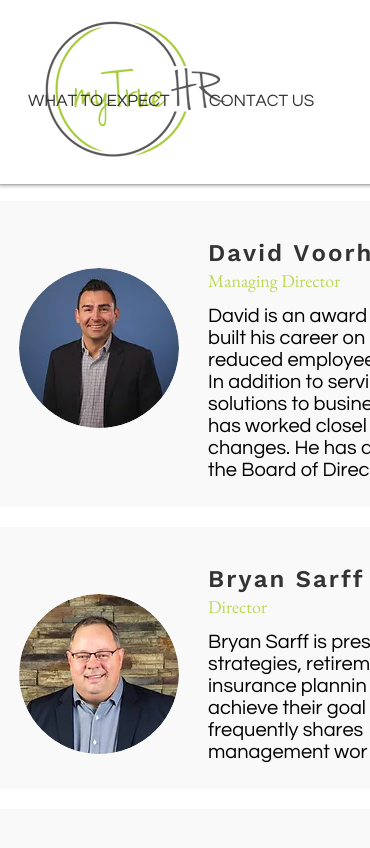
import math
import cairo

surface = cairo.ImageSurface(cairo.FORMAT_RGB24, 370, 848)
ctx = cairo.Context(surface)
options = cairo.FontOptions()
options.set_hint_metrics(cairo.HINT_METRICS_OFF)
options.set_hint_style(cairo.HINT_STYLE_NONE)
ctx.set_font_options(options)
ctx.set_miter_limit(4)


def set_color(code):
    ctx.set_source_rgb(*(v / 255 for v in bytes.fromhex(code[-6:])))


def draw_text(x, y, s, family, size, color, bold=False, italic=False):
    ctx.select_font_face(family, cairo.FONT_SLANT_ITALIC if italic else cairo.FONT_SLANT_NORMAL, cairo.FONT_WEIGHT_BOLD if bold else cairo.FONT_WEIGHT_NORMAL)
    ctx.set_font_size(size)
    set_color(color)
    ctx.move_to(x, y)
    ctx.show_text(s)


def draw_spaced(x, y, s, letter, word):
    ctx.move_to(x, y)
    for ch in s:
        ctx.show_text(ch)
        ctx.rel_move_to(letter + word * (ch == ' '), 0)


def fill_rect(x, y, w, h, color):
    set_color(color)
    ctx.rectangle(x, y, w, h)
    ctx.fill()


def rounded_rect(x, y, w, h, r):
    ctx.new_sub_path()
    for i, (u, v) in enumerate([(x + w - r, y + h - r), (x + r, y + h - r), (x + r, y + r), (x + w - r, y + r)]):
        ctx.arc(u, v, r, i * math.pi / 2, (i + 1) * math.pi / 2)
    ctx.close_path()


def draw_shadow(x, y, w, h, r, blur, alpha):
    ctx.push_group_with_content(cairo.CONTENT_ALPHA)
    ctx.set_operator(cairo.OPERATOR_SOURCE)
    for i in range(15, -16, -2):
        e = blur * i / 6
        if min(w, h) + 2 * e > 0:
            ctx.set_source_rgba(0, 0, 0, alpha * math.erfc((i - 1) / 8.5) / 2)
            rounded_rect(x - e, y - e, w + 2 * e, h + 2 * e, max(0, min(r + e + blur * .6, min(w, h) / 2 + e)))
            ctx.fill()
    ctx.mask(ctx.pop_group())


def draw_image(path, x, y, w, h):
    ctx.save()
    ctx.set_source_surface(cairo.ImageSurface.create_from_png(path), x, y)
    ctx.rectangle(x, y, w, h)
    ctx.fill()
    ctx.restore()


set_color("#ffffff")
ctx.paint()
set_color("#000000")
draw_shadow(0, 0, 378, 184, 0, 2.5, 0.7)
fill_rect(0, 0, 370, 184, "#ffffff")
draw_image("assets/img1.png", 45, 21, 180, 136)
draw_text(28, 106, "WHAT TO EXPECT", "Questrial", 17, "#333333")
draw_text(209, 106, "CONTACT US", "Questrial", 17, "#333333")
fill_rect(0, 201, 370, 306, "#f9f9f9")
ctx.select_font_face("Work Sans SemiBold")
ctx.set_font_size(24)
set_color("#333333")
draw_spaced(208, 261, "David Voorh", 2, 0)
draw_image("assets/img2.png", 19, 268, 160, 160)
draw_text(208, 287, "Managing Director", "EB Garamond", 18, "#bada55")
draw_text(208, 322, "David is an award", "Questrial", 20, "#000000")
draw_text(208, 344, "built his career on", "Questrial", 20, "#000000")
draw_text(208, 366, "reduced employee", "Questrial", 20, "#000000")
draw_text(208, 388, "In addition to servi", "Questrial", 20, "#000000")
draw_text(208, 410, "solutions to busine", "Questrial", 20, "#000000")
draw_text(208, 432, "has worked closel", "Questrial", 20, "#000000")
draw_text(208, 454, "changes. He has a", "Questrial", 20, "#000000")
draw_text(208, 476, "the Board of Direc", "Questrial", 20, "#000000")
fill_rect(0, 527, 370, 262, "#f9f9f9")
ctx.select_font_face("Work Sans SemiBold")
ctx.set_font_size(24)
set_color("#333333")
draw_spaced(208, 587, "Bryan Sarff", 2, 0)
draw_image("assets/img3.png", 19, 594, 160, 160)
draw_text(208, 613, "Director", "EB Garamond", 18, "#bada55")
draw_text(208, 648, "Bryan Sarff is pres", "Questrial", 20, "#000000")
draw_text(208, 670, "strategies, retirem", "Questrial", 20, "#000000")
draw_text(208, 692, "insurance plannin", "Questrial", 20, "#000000")
draw_text(208, 714, "achieve their goal", "Questrial", 20, "#000000")
draw_text(208, 736, "frequently shares", "Questrial", 20, "#000000")
draw_text(208, 758, "management wor", "Questrial", 20, "#000000")
fill_rect(0, 809, 370, 39, "#f9f9f9")
surface.write_to_png("output.png")
